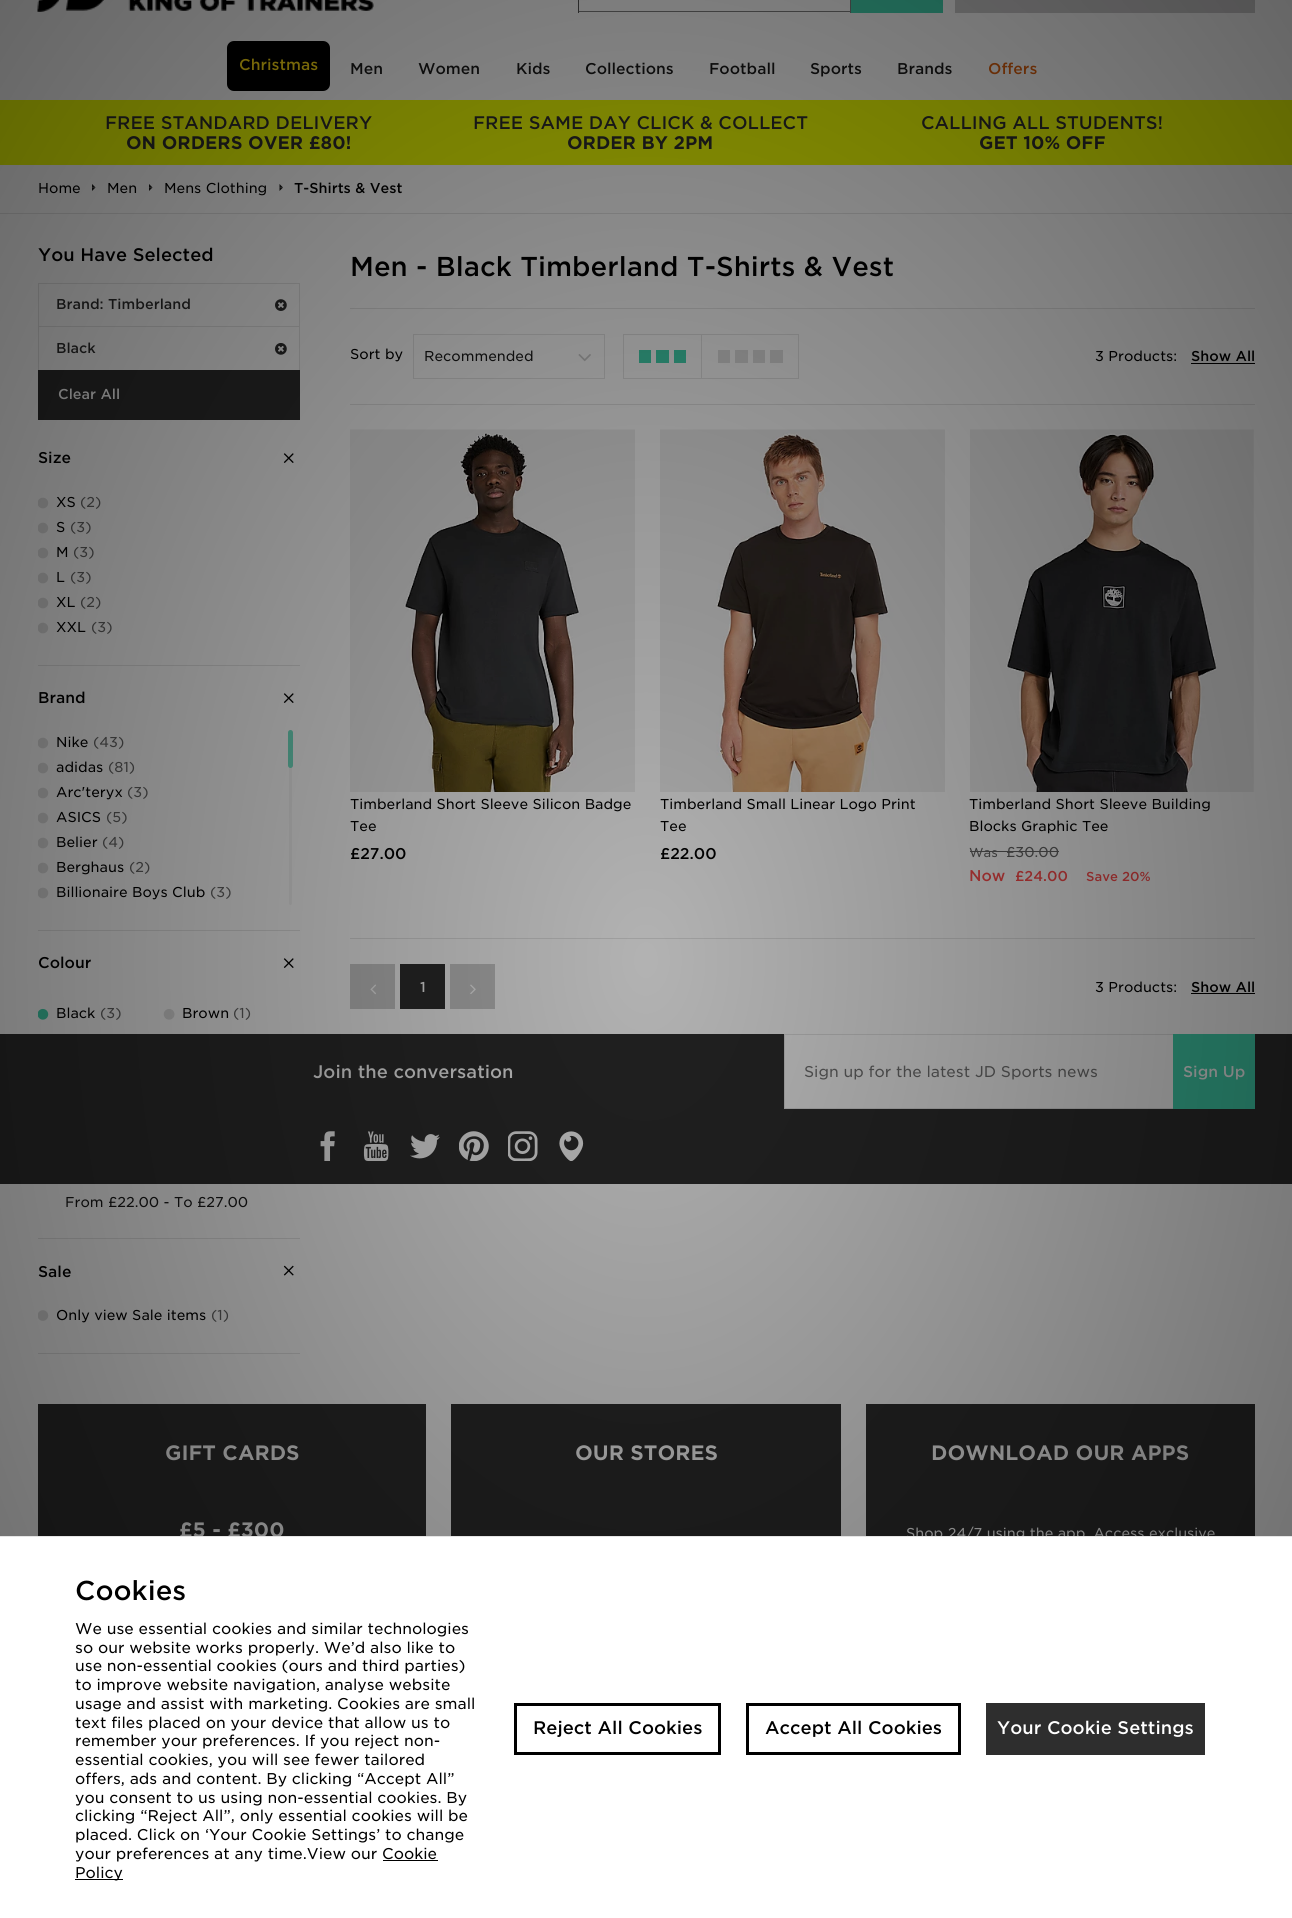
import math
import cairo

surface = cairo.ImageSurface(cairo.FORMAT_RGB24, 1292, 1918)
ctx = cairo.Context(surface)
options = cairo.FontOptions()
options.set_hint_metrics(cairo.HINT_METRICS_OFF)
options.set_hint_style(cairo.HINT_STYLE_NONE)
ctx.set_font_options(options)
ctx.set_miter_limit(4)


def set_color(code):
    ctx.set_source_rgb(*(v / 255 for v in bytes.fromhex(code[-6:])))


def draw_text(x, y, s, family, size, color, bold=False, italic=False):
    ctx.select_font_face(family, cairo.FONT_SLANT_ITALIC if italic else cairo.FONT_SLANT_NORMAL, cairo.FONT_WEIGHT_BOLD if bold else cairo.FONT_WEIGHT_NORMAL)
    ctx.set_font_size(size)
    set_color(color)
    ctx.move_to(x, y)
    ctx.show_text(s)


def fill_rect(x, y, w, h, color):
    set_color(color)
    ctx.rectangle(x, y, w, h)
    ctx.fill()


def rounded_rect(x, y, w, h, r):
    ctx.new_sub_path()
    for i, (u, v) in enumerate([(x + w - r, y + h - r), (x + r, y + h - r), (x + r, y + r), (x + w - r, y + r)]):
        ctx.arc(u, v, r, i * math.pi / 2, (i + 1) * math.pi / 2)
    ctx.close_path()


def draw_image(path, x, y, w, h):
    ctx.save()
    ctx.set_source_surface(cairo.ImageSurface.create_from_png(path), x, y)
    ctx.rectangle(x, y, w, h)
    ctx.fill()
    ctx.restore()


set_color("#ffffff")
ctx.paint()
draw_image("assets/img1.png", 37, 0, 337, 12)
fill_rect(850, 0, 1, 13, "#808080")
fill_rect(578, 11, 273, 1, "#808080")
fill_rect(578, 0, 1, 13, "#555555")
fill_rect(851, 0, 92, 13, "#43d5b0")
fill_rect(955, 0, 300, 13, "#cccbcc")
set_color("#000000")
rounded_rect(225.5, 39.5, 106, 53, 8.5)
ctx.fill_preserve()
set_color("#ffffff")
ctx.set_line_width(3)
ctx.stroke()
draw_text(239, 70, "Christmas", "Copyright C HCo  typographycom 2 Light", 15, "#ffde13")
draw_text(350, 74, "Men", "Copyright C HCo  typographycom 2 Light", 15, "#1a1a1a")
draw_text(418, 74, "Women", "Copyright C HCo  typographycom 2 Light", 15, "#1a1a1a")
draw_text(516, 74, "Kids", "Copyright C HCo  typographycom 2 Light", 15, "#1a1a1a")
draw_text(585, 74, "Collections", "Copyright C HCo  typographycom 2 Light", 15, "#1a1a1a")
draw_text(709, 74, "Football", "Copyright C HCo  typographycom 2 Light", 15, "#1a1a1a")
draw_text(810, 74, "Sports", "Copyright C HCo  typographycom 2 Light", 15, "#1a1a1a")
draw_text(897, 74, "Brands", "Copyright C HCo  typographycom 2 Light", 15, "#1a1a1a")
draw_text(988, 74, "Offers", "Copyright C HCo  typographycom 2 Light", 15, "#dd610e")
fill_rect(0, 100, 1292, 65, "#efff04")
draw_text(105, 129, "FREE STANDARD DELIVERY", "Copyright C HCo  typographycom 2 Light", 17.5, "#2e2e2e")
draw_text(126, 149, "ON ORDERS OVER £80!", "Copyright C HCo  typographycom", 17.5, "#2e2e2e")
draw_text(473, 129, "FREE SAME DAY CLICK & COLLECT", "Copyright C HCo  typographycom 2 Light", 17.5, "#2e2e2e")
draw_text(567, 149, "ORDER BY 2PM", "Copyright C HCo  typographycom", 17.5, "#2e2e2e")
draw_text(921, 129, "CALLING ALL STUDENTS!", "Copyright C HCo  typographycom 2 Light", 17.5, "#2e2e2e")
draw_text(979, 149, "GET 10% OFF", "Copyright C HCo  typographycom", 17.5, "#2e2e2e")
fill_rect(0, 213, 1292, 1, "#e5e5e5")
draw_text(38, 193, "Home", "Copyright C HCo  typographycom Light", 13.75, "#000000")
set_color("#1a1a1a")
ctx.new_path()
ctx.move_to(92, 184)
ctx.line_to(95.5, 187.5)
ctx.line_to(92, 187.5)
ctx.close_path()
ctx.fill()
ctx.new_path()
ctx.move_to(95.5, 187.5)
ctx.line_to(92, 191)
ctx.line_to(92, 187.5)
ctx.close_path()
ctx.fill()
draw_text(107, 193, "Men", "Copyright C HCo  typographycom Light", 13.75, "#000000")
set_color("#1a1a1a")
ctx.new_path()
ctx.move_to(149, 184)
ctx.line_to(152.5, 187.5)
ctx.line_to(149, 187.5)
ctx.close_path()
ctx.fill()
ctx.new_path()
ctx.move_to(152.5, 187.5)
ctx.line_to(149, 191)
ctx.line_to(149, 187.5)
ctx.close_path()
ctx.fill()
draw_text(164, 193, "Mens Clothing", "Copyright C HCo  typographycom Light", 13.75, "#000000")
set_color("#1a1a1a")
ctx.new_path()
ctx.move_to(279.5, 184)
ctx.line_to(283, 187.5)
ctx.line_to(279.5, 187.5)
ctx.close_path()
ctx.fill()
ctx.new_path()
ctx.move_to(283, 187.5)
ctx.line_to(279.5, 191)
ctx.line_to(279.5, 187.5)
ctx.close_path()
ctx.fill()
draw_text(294, 193, "T-Shirts & Vest", "Copyright C HCo  typographycom 2 Light", 13.75, "#000000")
draw_text(38, 261, "You Have Selected", "Copyright C HCo  typographycom 2 Light", 17.5, "#000000")
ctx.rectangle(38.5, 283.5, 261, 44)
set_color("#e5e5e5")
ctx.set_line_width(1)
ctx.stroke()
draw_text(56, 309, "Brand: Timberland", "Copyright C HCo  typographycom 2 Light", 13.75, "#2e2e2e")
draw_image("assets/img2.png", 275, 299, 12, 12)
fill_rect(39, 327, 260, 1, "#ffffff")
ctx.rectangle(38.5, 326.5, 261, 44)
set_color("#e5e5e5")
ctx.stroke()
draw_text(56, 353, "Black", "Copyright C HCo  typographycom 2 Light", 13.75, "#2e2e2e")
draw_image("assets/img3.png", 275, 343, 12, 12)
fill_rect(38, 370, 262, 50, "#2e2e2e")
draw_text(58, 399, "Clear All", "Copyright C HCo  typographycom 2 Light", 13.75, "#ffffff")
fill_rect(38, 665, 262, 1, "#e5e5e5")
draw_text(38, 463, "Size", "Copyright C HCo  typographycom 2 Light", 15, "#000000")
draw_image("assets/img4.png", 283, 453, 7, 10)
draw_image("assets/img5.png", 288, 453, 6, 10)
draw_image("assets/img6.png", 38, 497, 11, 12)
draw_text(56, 507, "XS", "Copyright C HCo  typographycom Light", 13.75, "#000000")
draw_text(80, 507, "(2)", "Copyright C HCo  typographycom Light", 13.75, "#666666")
draw_image("assets/img6.png", 38, 522, 11, 12)
draw_text(56, 532, "S", "Copyright C HCo  typographycom Light", 13.75, "#000000")
draw_text(70, 532, "(3)", "Copyright C HCo  typographycom Light", 13.75, "#666666")
draw_image("assets/img6.png", 38, 547, 11, 12)
draw_text(56, 557, "M", "Copyright C HCo  typographycom Light", 13.75, "#000000")
draw_text(73, 557, "(3)", "Copyright C HCo  typographycom Light", 13.75, "#666666")
draw_image("assets/img6.png", 38, 572, 11, 12)
draw_text(56, 582, "L", "Copyright C HCo  typographycom Light", 13.75, "#000000")
draw_text(70, 582, "(3)", "Copyright C HCo  typographycom Light", 13.75, "#666666")
draw_image("assets/img6.png", 38, 597, 11, 12)
draw_text(56, 607, "XL", "Copyright C HCo  typographycom Light", 13.75, "#000000")
draw_text(80, 607, "(2)", "Copyright C HCo  typographycom Light", 13.75, "#666666")
draw_image("assets/img6.png", 38, 622, 11, 12)
draw_text(56, 632, "XXL", "Copyright C HCo  typographycom Light", 13.75, "#000000")
draw_text(91, 632, "(3)", "Copyright C HCo  typographycom Light", 13.75, "#666666")
fill_rect(38, 930, 262, 1, "#e5e5e5")
draw_text(38, 703, "Brand", "Copyright C HCo  typographycom 2 Light", 15, "#000000")
draw_image("assets/img4.png", 283, 693, 7, 10)
draw_image("assets/img5.png", 288, 693, 6, 10)
draw_image("assets/img6.png", 38, 737, 11, 12)
draw_text(56, 747, "Nike", "Copyright C HCo  typographycom Light", 13.75, "#000000")
draw_text(93, 747, "(43)", "Copyright C HCo  typographycom Light", 13.75, "#666666")
draw_image("assets/img6.png", 38, 762, 11, 12)
draw_text(56, 772, "adidas", "Copyright C HCo  typographycom Light", 13.75, "#000000")
draw_text(108, 772, "(81)", "Copyright C HCo  typographycom Light", 13.75, "#666666")
draw_image("assets/img6.png", 38, 787, 11, 12)
draw_text(56, 797, "Arc'teryx", "Copyright C HCo  typographycom Light", 13.75, "#000000")
draw_text(127, 797, "(3)", "Copyright C HCo  typographycom Light", 13.75, "#666666")
draw_image("assets/img6.png", 38, 812, 11, 12)
draw_text(56, 822, "ASICS", "Copyright C HCo  typographycom Light", 13.75, "#000000")
draw_text(106, 822, "(5)", "Copyright C HCo  typographycom Light", 13.75, "#666666")
draw_image("assets/img6.png", 38, 837, 11, 12)
draw_text(56, 847, "Belier", "Copyright C HCo  typographycom Light", 13.75, "#000000")
draw_text(102, 847, "(4)", "Copyright C HCo  typographycom Light", 13.75, "#666666")
draw_image("assets/img6.png", 38, 862, 11, 12)
draw_text(56, 872, "Berghaus", "Copyright C HCo  typographycom Light", 13.75, "#000000")
draw_text(129, 872, "(2)", "Copyright C HCo  typographycom Light", 13.75, "#666666")
draw_image("assets/img6.png", 38, 887, 11, 12)
draw_text(56, 897, "Billionaire Boys Club", "Copyright C HCo  typographycom Light", 13.75, "#000000")
draw_text(210, 897, "(3)", "Copyright C HCo  typographycom Light", 13.75, "#666666")
set_color("#f5f5f5")
rounded_rect(289, 730, 3, 175, 1.5)
ctx.fill()
set_color("#72e0c4")
rounded_rect(288, 730, 5, 38, 2.5)
ctx.fill()
draw_text(38, 968, "Colour", "Copyright C HCo  typographycom 2 Light", 15, "#000000")
draw_image("assets/img4.png", 283, 958, 7, 10)
draw_image("assets/img5.png", 288, 958, 6, 10)
draw_image("assets/img7.png", 38, 1008, 11, 12)
draw_text(56, 1018, "Black", "Copyright C HCo  typographycom Light", 13.75, "#000000")
draw_text(100, 1018, "(3)", "Copyright C HCo  typographycom Light", 13.75, "#666666")
draw_image("assets/img8.png", 163, 1009, 12, 11)
draw_text(182, 1018, "Brown", "Copyright C HCo  typographycom Light", 13.75, "#000000")
draw_text(233, 1018, "(1)", "Copyright C HCo  typographycom Light", 13.75, "#666666")
fill_rect(38, 1238, 262, 1, "#e5e5e5")
draw_text(65, 1207, "From £22.00 - To £27.00", "Copyright C HCo  typographycom Light", 13.75, "#1a1a1a")
fill_rect(38, 1353, 262, 1, "#e5e5e5")
draw_text(38, 1277, "Sale", "Copyright C HCo  typographycom 2 Light", 15, "#000000")
draw_image("assets/img9.png", 283, 1265, 7, 11)
draw_image("assets/img10.png", 288, 1265, 6, 11)
draw_image("assets/img11.png", 38, 1310, 11, 11)
draw_text(56, 1320, "Only view Sale items", "Copyright C HCo  typographycom Light", 13.75, "#000000")
draw_text(211, 1320, "(1)", "Copyright C HCo  typographycom Light", 13.75, "#666666")
draw_text(350, 276, "Men - Black Timberland T-Shirts & Vest", "Copyright C HCo  typographycom 2 Light", 26.25, "#000000")
fill_rect(350, 308, 905, 1, "#e5e5e5")
fill_rect(350, 404, 905, 1, "#e5e5e5")
draw_text(350, 359, "Sort by", "Copyright C HCo  typographycom Light", 13.75, "#000000")
ctx.rectangle(413.5, 334.5, 191, 44)
set_color("#e5e5e5")
ctx.stroke()
draw_text(424, 361, "Recommended", "Copyright C HCo  typographycom Light", 13.75, "#1a1a1a")
draw_image("assets/img12.png", 578, 354, 13, 8)
ctx.rectangle(623.5, 334.5, 79, 44)
set_color("#e5e5e5")
ctx.stroke()
fill_rect(639, 350, 12, 13, "#43d5b0")
fill_rect(656, 350, 13, 13, "#43d5b0")
fill_rect(674, 350, 12, 13, "#43d5b0")
fill_rect(702, 335, 1, 43, "#ffffff")
ctx.rectangle(701.5, 334.5, 97, 44)
set_color("#e5e5e5")
ctx.stroke()
fill_rect(718, 350, 12, 13, "#dfdfdf")
fill_rect(735, 350, 13, 13, "#dfdfdf")
fill_rect(753, 350, 12, 13, "#dfdfdf")
fill_rect(770, 350, 13, 13, "#dfdfdf")
draw_text(1095, 361, "3 Products:", "Copyright C HCo  typographycom Light", 13.75, "#000000")
draw_text(1191, 361, "Show All", "Copyright C HCo  typographycom 2 Light", 13.75, "#000000")
fill_rect(1191, 363, 64, 1, "#000000")
draw_image("assets/img13.png", 350, 429, 285, 363)
draw_text(350, 809, "Timberland Short Sleeve Silicon Badge", "Copyright C HCo  typographycom Light", 13.75, "#000000")
draw_text(350, 831, "Tee", "Copyright C HCo  typographycom Light", 13.75, "#000000")
draw_text(350, 859, "£27.00", "Copyright C HCo  typographycom 2 Light", 15, "#000000")
draw_image("assets/img14.png", 660, 429, 285, 363)
draw_text(660, 809, "Timberland Small Linear Logo Print", "Copyright C HCo  typographycom Light", 13.75, "#000000")
draw_text(660, 831, "Tee", "Copyright C HCo  typographycom Light", 13.75, "#000000")
draw_text(660, 859, "£22.00", "Copyright C HCo  typographycom 2 Light", 15, "#000000")
draw_image("assets/img15.png", 970, 429, 284, 363)
draw_text(969, 809, "Timberland Short Sleeve Building", "Copyright C HCo  typographycom Light", 13.75, "#000000")
draw_text(969, 831, "Blocks Graphic Tee", "Copyright C HCo  typographycom Light", 13.75, "#000000")
draw_text(969, 857, "Was", "Copyright C HCo  typographycom Light", 12.5, "#666666")
fill_rect(970, 851, 36, 1, "#666666")
draw_text(1006, 857, "£30.00", "Copyright C HCo  typographycom Light", 13.75, "#666666")
fill_rect(1006, 851, 53, 1, "#666666")
draw_text(969, 881, "Now", "Copyright C HCo  typographycom 2 Light", 15, "#ff4c4c")
draw_text(1015, 881, "£24.00", "Copyright C HCo  typographycom 2 Light", 13.75, "#ff4c4c")
draw_text(1086, 881, "Save 20%", "Copyright C HCo  typographycom 2 Light", 12.5, "#ff4c4c")
fill_rect(350, 938, 905, 1, "#e5e5e5")
fill_rect(350, 964, 45, 45, "#cccccc")
draw_image("assets/img16.png", 370, 984, 6, 11)
fill_rect(400, 964, 45, 45, "#2e2e2e")
draw_text(420, 992, "1", "Copyright C HCo  typographycom 2 Light", 13.75, "#ffffff")
fill_rect(450, 964, 45, 45, "#cccccc")
draw_image("assets/img17.png", 470, 984, 6, 10)
draw_text(1095, 992, "3 Products:", "Copyright C HCo  typographycom Light", 13.75, "#000000")
draw_text(1191, 992, "Show All", "Copyright C HCo  typographycom 2 Light", 13.75, "#000000")
fill_rect(1191, 993, 64, 1, "#000000")
fill_rect(0, 1034, 1292, 150, "#2e2e2e")
draw_text(313, 1078, "Join the conversation", "Copyright C HCo  typographycom 2 Light", 17.5, "#ffffff")
draw_image("assets/img18.png", 320, 1131, 15, 30)
draw_image("assets/img19.png", 363, 1131, 26, 30)
draw_image("assets/img20.png", 410, 1134, 30, 25)
draw_image("assets/img21.png", 459, 1131, 30, 30)
draw_image("assets/img22.png", 508, 1131, 30, 30)
draw_image("assets/img23.png", 559, 1131, 25, 30)
fill_rect(785, 1035, 388, 73, "#ffffff")
ctx.rectangle(784.5, 1034.5, 470, 74)
set_color("#e5e5e5")
ctx.stroke()
draw_text(804, 1077, "Sign up for the latest JD Sports news", "Copyright C HCo  typographycom Light", 15, "#757575")
fill_rect(1173, 1034, 82, 75, "#43d5b0")
draw_text(1183, 1077, "Sign Up", "Copyright C HCo  typographycom 2 Light", 15, "#ffffff")
fill_rect(38, 1404, 388, 132, "#2e2e2e")
draw_text(165, 1460, "GIFT CARDS", "Copyright C HCo  typographycom", 20, "#ffffff")
draw_text(179, 1537, "£5 - £300", "Copyright C HCo  typographycom", 20, "#ffffff")
fill_rect(451, 1404, 390, 132, "#2e2e2e")
draw_text(575, 1460, "OUR STORES", "Copyright C HCo  typographycom", 20, "#ffffff")
fill_rect(866, 1404, 389, 132, "#2e2e2e")
draw_text(931, 1460, "DOWNLOAD OUR APPS", "Copyright C HCo  typographycom", 20, "#ffffff")
draw_text(906, 1538, "Shop 24/7 using the app. Access exclusive", "Copyright C HCo  typographycom Light", 13.75, "#ffffff")
gradient = cairo.RadialGradient(0, 0, 0, 0, 0, 1)
gradient.set_matrix(cairo.Matrix(1 / 914, 0, 0, 1 / 1357, -1 * 646 / 914, -1 * 959 / 1357))
gradient.add_color_stop_rgba(0, 0, 0, 0, 0.3)
gradient.add_color_stop_rgba(1, 0, 0, 0, 0.6)
ctx.set_source(gradient)
ctx.rectangle(0, 0, 1292, 1536)
ctx.fill()
fill_rect(0, 1536, 1292, 1, "#e5e5e5")
draw_text(75, 1600, "Cookies", "Copyright C HCo  typographycom 2 Light", 26.25, "#000000")
draw_text(75, 1634, "We use essential cookies and similar technologies", "Copyright C HCo  typographycom Light", 15, "#000000")
draw_text(75, 1653, "so our website works properly. We’d also like to", "Copyright C HCo  typographycom Light", 15, "#000000")
draw_text(75, 1671, "use non-essential cookies (ours and third parties)", "Copyright C HCo  typographycom Light", 15, "#000000")
draw_text(75, 1690, "to improve website navigation, analyse website", "Copyright C HCo  typographycom Light", 15, "#000000")
draw_text(75, 1709, "usage and assist with marketing. Cookies are small", "Copyright C HCo  typographycom Light", 15, "#000000")
draw_text(75, 1728, "text files placed on your device that allow us to", "Copyright C HCo  typographycom Light", 15, "#000000")
draw_text(75, 1746, "remember your preferences. If you reject non-", "Copyright C HCo  typographycom Light", 15, "#000000")
draw_text(75, 1765, "essential cookies, you will see fewer tailored", "Copyright C HCo  typographycom Light", 15, "#000000")
draw_text(75, 1784, "offers, ads and content. By clicking “Accept All”", "Copyright C HCo  typographycom Light", 15, "#000000")
draw_text(75, 1803, "you consent to us using non-essential cookies. By", "Copyright C HCo  typographycom Light", 15, "#000000")
draw_text(75, 1821, "clicking “Reject All”, only essential cookies will be", "Copyright C HCo  typographycom Light", 15, "#000000")
draw_text(75, 1840, "placed. Click on ‘Your Cookie Settings’ to change", "Copyright C HCo  typographycom Light", 15, "#000000")
draw_text(75, 1859, "your preferences at any time.View our Cookie", "Copyright C HCo  typographycom Light", 15, "#000000")
fill_rect(75, 1879, 48, 1, "#000000")
draw_text(75, 1878, "Policy", "Copyright C HCo  typographycom Light", 15, "#000000")
fill_rect(383, 1860, 55, 1, "#000000")
ctx.rectangle(515.5, 1704.5, 204, 49)
ctx.set_line_width(3)
ctx.stroke()
draw_text(533, 1734, "Reject All Cookies", "Copyright C HCo  typographycom 2 Light", 17.5, "#000000")
ctx.rectangle(747.5, 1704.5, 212, 49)
ctx.stroke()
draw_text(765, 1734, "Accept All Cookies", "Copyright C HCo  typographycom 2 Light", 17.5, "#000000")
fill_rect(986, 1703, 219, 52, "#2e2e2e")
draw_text(997, 1734, "Your Cookie Settings", "Copyright C HCo  typographycom 2 Light", 17.5, "#ffffff")
surface.write_to_png("output.png")
